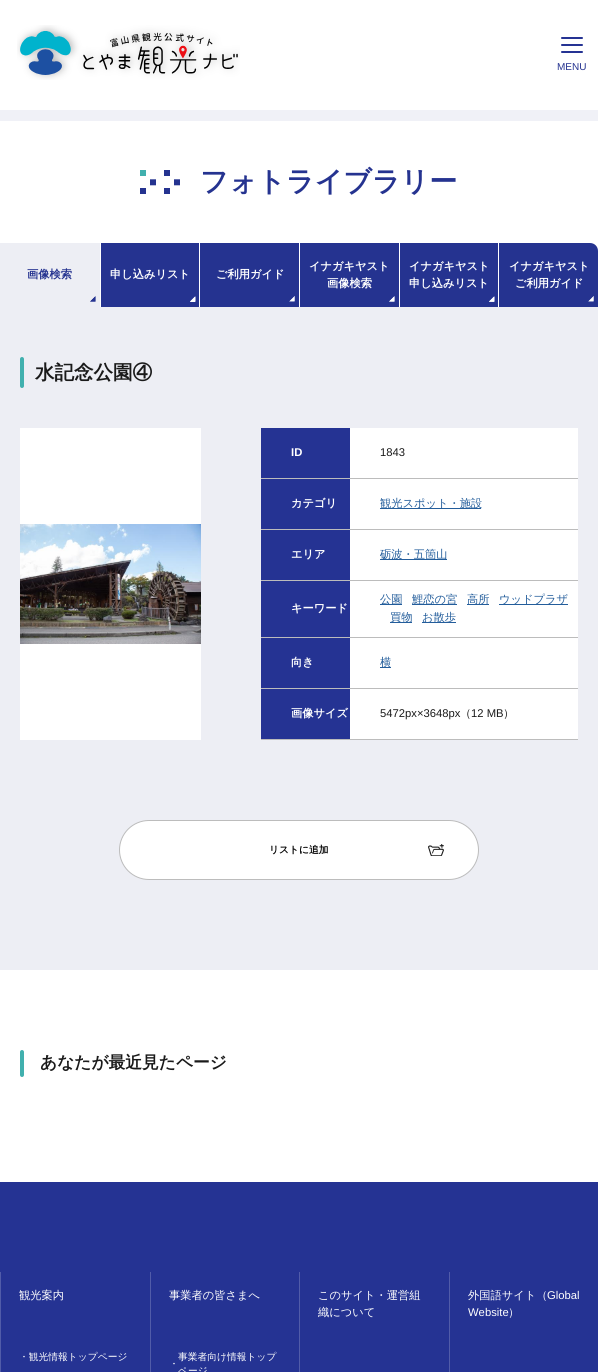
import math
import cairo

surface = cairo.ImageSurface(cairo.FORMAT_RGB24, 598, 1372)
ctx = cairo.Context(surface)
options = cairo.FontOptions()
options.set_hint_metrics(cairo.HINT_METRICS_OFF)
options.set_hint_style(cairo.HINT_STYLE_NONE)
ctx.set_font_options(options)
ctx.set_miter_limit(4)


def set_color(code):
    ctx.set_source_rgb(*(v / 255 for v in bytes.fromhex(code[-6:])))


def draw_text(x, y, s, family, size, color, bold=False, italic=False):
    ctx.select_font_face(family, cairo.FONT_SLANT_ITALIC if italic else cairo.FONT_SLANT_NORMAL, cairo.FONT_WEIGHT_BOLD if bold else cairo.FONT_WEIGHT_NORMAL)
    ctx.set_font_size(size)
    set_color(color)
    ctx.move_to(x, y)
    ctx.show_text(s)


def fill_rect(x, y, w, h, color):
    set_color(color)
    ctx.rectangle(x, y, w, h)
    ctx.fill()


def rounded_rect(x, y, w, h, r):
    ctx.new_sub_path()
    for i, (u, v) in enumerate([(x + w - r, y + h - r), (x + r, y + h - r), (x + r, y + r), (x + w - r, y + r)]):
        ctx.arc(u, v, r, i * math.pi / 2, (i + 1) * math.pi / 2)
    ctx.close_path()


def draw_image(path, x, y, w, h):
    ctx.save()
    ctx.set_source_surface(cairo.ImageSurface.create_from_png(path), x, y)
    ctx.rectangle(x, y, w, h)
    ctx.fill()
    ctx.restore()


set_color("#ffffff")
ctx.paint()
draw_image("assets/img1.png", 17, 25, 223, 55)
set_color("#253393")
rounded_rect(561, 37, 22, 2, 1)
ctx.fill()
rounded_rect(561, 44, 22, 2, 1)
ctx.fill()
rounded_rect(561, 51, 22, 2, 1)
ctx.fill()
draw_text(557, 70, "MENU", "Liberation Sans", 10, "#253390")
fill_rect(0, 110, 598, 11, "#f0f1f7")
draw_image("assets/img2.png", 140, 170, 40, 24)
draw_text(200, 191, "フォトライブラリー", "WenQuanYi Zen Hei", 28, "#253390", bold=True)
fill_rect(0, 243, 100, 64, "#edeef4")
draw_text(27, 278, "画像検索", "WenQuanYi Zen Hei", 11.25, "#253390", bold=True)
draw_image("assets/img3.png", 90, 296, 6, 6)
fill_rect(101, 243, 98, 64, "#253390")
draw_text(110, 278, "申し込みリスト", "WenQuanYi Zen Hei", 11.25, "#ffffff", bold=True)
draw_image("assets/img4.png", 190, 296, 6, 6)
fill_rect(200, 243, 99, 64, "#253390")
draw_text(216, 278, "ご利用ガイド", "WenQuanYi Zen Hei", 11.25, "#ffffff", bold=True)
draw_image("assets/img5.png", 289, 296, 6, 6)
fill_rect(300, 243, 99, 64, "#253390")
draw_text(309, 270, "イナガキヤスト", "WenQuanYi Zen Hei", 11.25, "#ffffff", bold=True)
draw_text(327, 287, "画像検索", "WenQuanYi Zen Hei", 11.25, "#ffffff", bold=True)
draw_image("assets/img6.png", 389, 296, 6, 6)
fill_rect(400, 243, 98, 64, "#253390")
draw_text(409, 270, "イナガキヤスト", "WenQuanYi Zen Hei", 11.25, "#ffffff", bold=True)
draw_text(409, 287, "申し込みリスト", "WenQuanYi Zen Hei", 11.25, "#ffffff", bold=True)
draw_image("assets/img7.png", 489, 296, 6, 6)
set_color("#253390")
ctx.new_path()
ctx.move_to(498, 243)
ctx.line_to(590, 243)
ctx.curve_to(594.5, 243, 598, 246.5, 598, 251)
ctx.line_to(598, 307)
ctx.line_to(498, 307)
ctx.close_path()
ctx.fill()
fill_rect(498, 243, 1, 64, "#ffffff")
draw_text(509, 270, "イナガキヤスト", "WenQuanYi Zen Hei", 11.25, "#ffffff", bold=True)
draw_text(515, 287, "ご利用ガイド", "WenQuanYi Zen Hei", 11.25, "#ffffff", bold=True)
draw_image("assets/img8.png", 588, 296, 6, 6)
fill_rect(0, 307, 598, 663, "#edeef4")
set_color("#41b0ae")
rounded_rect(20, 357, 4, 31, 2)
ctx.fill()
draw_text(35, 379, "水記念公園④", "WenQuanYi Zen Hei", 19.5, "#1a1a1a", bold=True)
fill_rect(20, 428, 181, 312, "#ffffff")
draw_image("assets/img9.png", 20, 524, 181, 120)
fill_rect(261, 478, 317, 1, "#bcbcbc")
fill_rect(261, 428, 89, 50, "#253393")
draw_text(291, 456, "ID", "Liberation Sans", 11.25, "#ffffff", bold=True)
fill_rect(350, 428, 228, 50, "#ffffff")
draw_text(380, 456, "1843", "Liberation Sans", 11.25, "#1a1a1a")
fill_rect(261, 529, 317, 1, "#bcbcbc")
fill_rect(261, 479, 89, 50, "#253393")
draw_text(291, 507, "カテゴリ", "WenQuanYi Zen Hei", 11.25, "#ffffff", bold=True)
fill_rect(350, 479, 228, 50, "#ffffff")
fill_rect(380, 508, 101, 1, "#235d9b")
draw_text(380, 507, "観光スポット・施設", "WenQuanYi Zen Hei Medium", 11.25, "#235d9b")
fill_rect(261, 580, 317, 1, "#bcbcbc")
fill_rect(261, 530, 89, 50, "#253393")
draw_text(291, 558, "エリア", "WenQuanYi Zen Hei", 11.25, "#ffffff", bold=True)
fill_rect(350, 530, 228, 50, "#ffffff")
fill_rect(380, 559, 67, 1, "#235d9b")
draw_text(380, 558, "砺波・五箇山", "WenQuanYi Zen Hei Medium", 11.25, "#235d9b")
fill_rect(261, 637, 317, 1, "#bcbcbc")
fill_rect(261, 581, 89, 56, "#253393")
draw_text(291, 612, "キーワード", "WenQuanYi Zen Hei", 11.25, "#ffffff", bold=True)
fill_rect(350, 581, 228, 56, "#ffffff")
fill_rect(380, 604, 22, 1, "#235d9b")
draw_text(380, 603, "公園", "WenQuanYi Zen Hei Medium", 11.25, "#235d9b")
fill_rect(412, 604, 45, 1, "#235d9b")
draw_text(412, 603, "鯉恋の宮", "WenQuanYi Zen Hei Medium", 11.25, "#235d9b")
fill_rect(467, 604, 22, 1, "#235d9b")
draw_text(467, 603, "高所", "WenQuanYi Zen Hei Medium", 11.25, "#235d9b")
fill_rect(499, 604, 69, 1, "#235d9b")
draw_text(499, 603, "ウッドプラザ", "WenQuanYi Zen Hei Medium", 11.25, "#235d9b")
fill_rect(390, 622, 22, 1, "#235d9b")
draw_text(390, 621, "買物", "WenQuanYi Zen Hei Medium", 11.25, "#235d9b")
fill_rect(422, 622, 34, 1, "#235d9b")
draw_text(422, 621, "お散歩", "WenQuanYi Zen Hei Medium", 11.25, "#235d9b")
fill_rect(261, 688, 317, 1, "#bcbcbc")
fill_rect(261, 638, 89, 50, "#253393")
draw_text(291, 666, "向き", "WenQuanYi Zen Hei", 11.25, "#ffffff", bold=True)
fill_rect(350, 638, 228, 50, "#ffffff")
fill_rect(380, 667, 11, 1, "#235d9b")
draw_text(380, 666, "横", "WenQuanYi Zen Hei Medium", 11.25, "#235d9b")
fill_rect(261, 739, 317, 1, "#bcbcbc")
fill_rect(261, 689, 89, 50, "#253393")
draw_text(291, 717, "画像サイズ", "WenQuanYi Zen Hei", 11.25, "#ffffff", bold=True)
fill_rect(350, 689, 228, 50, "#ffffff")
draw_text(380, 717, "5472px×3648px", "Liberation Sans", 11.25, "#1a1a1a")
draw_text(460, 717, "（", "WenQuanYi Zen Hei Medium", 11.25, "#1a1a1a")
draw_text(471, 717, "12 MB", "Liberation Sans", 11.25, "#1a1a1a")
draw_text(503, 717, "）", "WenQuanYi Zen Hei Medium", 11.25, "#1a1a1a")
set_color("#ffffff")
rounded_rect(119.5, 820.5, 359, 59, 29.5)
ctx.fill_preserve()
set_color("#bcbcbc")
ctx.set_line_width(1)
ctx.stroke()
draw_text(269, 853, "リストに追加", "WenQuanYi Zen Hei", 9.75, "#000000", bold=True)
draw_image("assets/img10.png", 428, 844, 16, 12)
set_color("#41b0ae")
rounded_rect(20, 1050, 4, 27, 2)
ctx.fill()
draw_text(40, 1068, "あなたが最近見たページ", "WenQuanYi Zen Hei", 16.75, "#1a1a1a", bold=True)
fill_rect(0, 1182, 598, 190, "#253393")
fill_rect(0, 1272, 1, 100, "#515ca9")
draw_text(19, 1299, "観光案内", "WenQuanYi Zen Hei Medium", 11.25, "#ffffff")
draw_text(19, 1360, "・観光情報トップページ", "WenQuanYi Zen Hei Medium", 9.75, "#ffffff")
fill_rect(150, 1272, 1, 100, "#515ca9")
draw_text(169, 1299, "事業者の皆さまへ", "WenQuanYi Zen Hei Medium", 11.25, "#ffffff")
draw_text(178, 1360, "事業者向け情報トップ", "WenQuanYi Zen Hei Medium", 9.75, "#ffffff")
draw_text(169, 1367, "・", "WenQuanYi Zen Hei Medium", 9.75, "#ffffff")
draw_text(178, 1374, "ページ", "WenQuanYi Zen Hei Medium", 9.75, "#ffffff")
fill_rect(299, 1272, 1, 100, "#515ca9")
draw_text(318, 1299, "このサイト・運営組", "WenQuanYi Zen Hei Medium", 11.25, "#ffffff")
draw_text(318, 1316, "織について", "WenQuanYi Zen Hei Medium", 11.25, "#ffffff")
fill_rect(449, 1272, 1, 100, "#515ca9")
draw_text(468, 1299, "外国語サイト（", "WenQuanYi Zen Hei Medium", 11.25, "#ffffff")
draw_text(547, 1299, "Global", "Liberation Sans", 11.25, "#ffffff")
draw_text(468, 1316, "Website", "Liberation Sans", 11.25, "#ffffff")
draw_text(508, 1316, "）", "WenQuanYi Zen Hei Medium", 11.25, "#ffffff")
surface.write_to_png("output.png")
